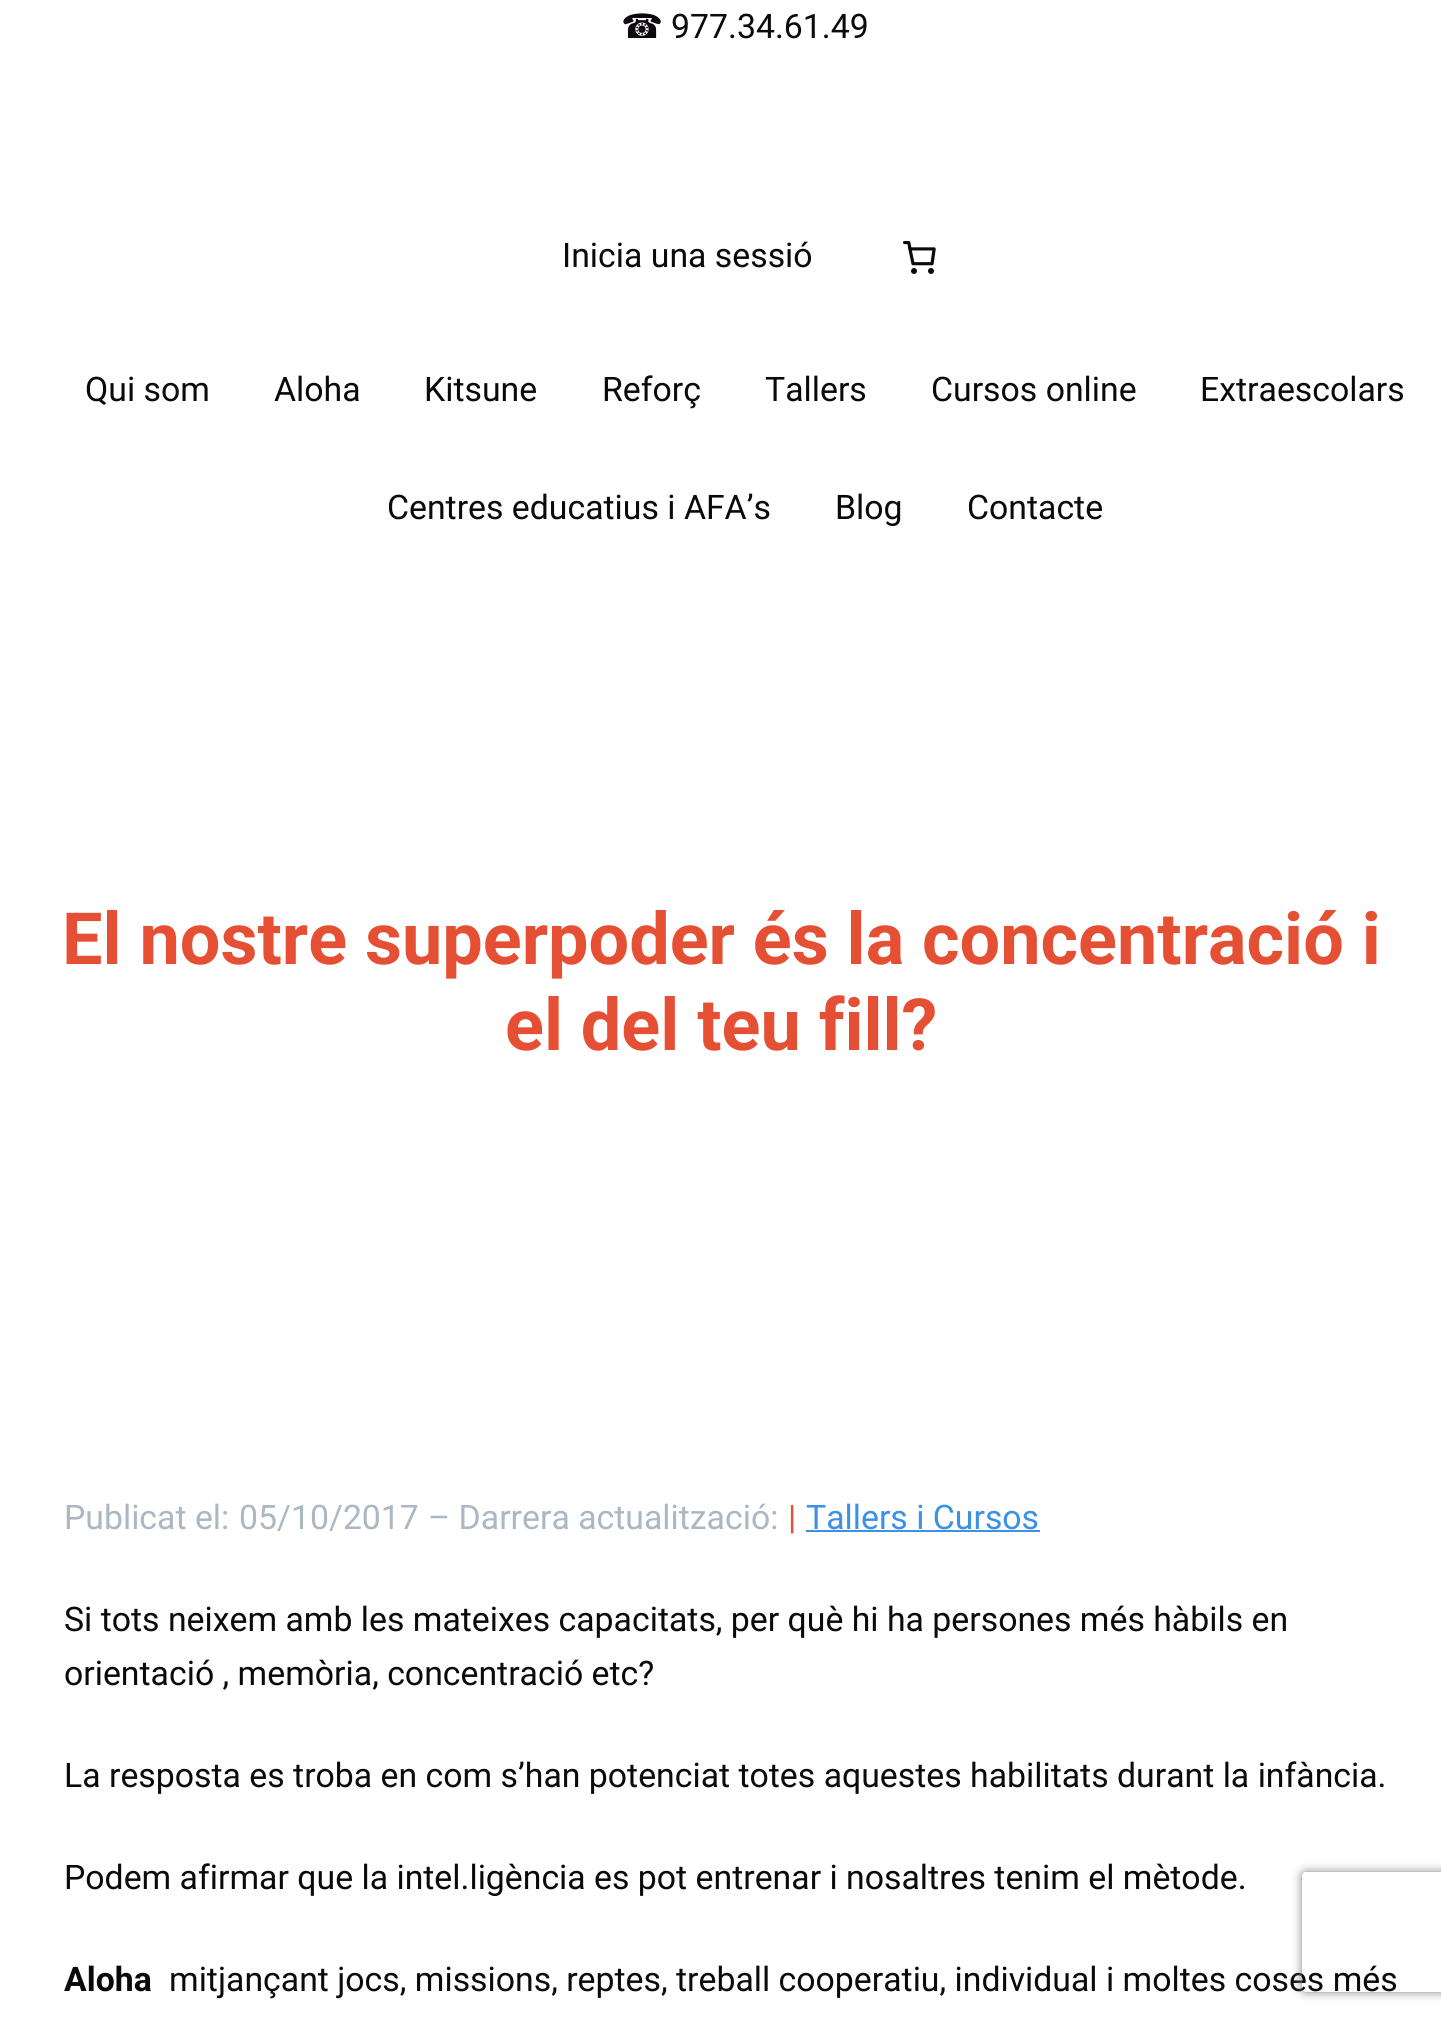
import math
import cairo

surface = cairo.ImageSurface(cairo.FORMAT_RGB24, 1441, 2019)
ctx = cairo.Context(surface)
options = cairo.FontOptions()
options.set_hint_metrics(cairo.HINT_METRICS_OFF)
options.set_hint_style(cairo.HINT_STYLE_NONE)
ctx.set_font_options(options)
ctx.set_miter_limit(4)


def set_color(code):
    ctx.set_source_rgb(*(v / 255 for v in bytes.fromhex(code[-6:])))


def draw_text(x, y, s, family, size, color, bold=False, italic=False):
    ctx.select_font_face(family, cairo.FONT_SLANT_ITALIC if italic else cairo.FONT_SLANT_NORMAL, cairo.FONT_WEIGHT_BOLD if bold else cairo.FONT_WEIGHT_NORMAL)
    ctx.set_font_size(size)
    set_color(color)
    ctx.move_to(x, y)
    ctx.show_text(s)


def fill_rect(x, y, w, h, color):
    set_color(color)
    ctx.rectangle(x, y, w, h)
    ctx.fill()


def rounded_rect(x, y, w, h, r):
    ctx.new_sub_path()
    for i, (u, v) in enumerate([(x + w - r, y + h - r), (x + r, y + h - r), (x + r, y + r), (x + w - r, y + r)]):
        ctx.arc(u, v, r, i * math.pi / 2, (i + 1) * math.pi / 2)
    ctx.close_path()


def draw_shadow(x, y, w, h, r, blur, alpha):
    ctx.push_group_with_content(cairo.CONTENT_ALPHA)
    ctx.set_operator(cairo.OPERATOR_SOURCE)
    for i in range(15, -16, -2):
        e = blur * i / 6
        if min(w, h) + 2 * e > 0:
            ctx.set_source_rgba(0, 0, 0, alpha * math.erfc((i - 1) / 8.5) / 2)
            rounded_rect(x - e, y - e, w + 2 * e, h + 2 * e, max(0, min(r + e + blur * .6, min(w, h) / 2 + e)))
            ctx.fill()
    ctx.mask(ctx.pop_group())


def draw_image(path, x, y, w, h):
    ctx.save()
    ctx.set_source_surface(cairo.ImageSurface.create_from_png(path), x, y)
    ctx.rectangle(x, y, w, h)
    ctx.fill()
    ctx.restore()


set_color("#ffffff")
ctx.paint()
draw_text(621, 38, "☎", "DejaVu Sans", 33.8, "#0c090d")
draw_text(671, 38, "977.34.61.49", "Roboto", 33.8, "#0c090d")
draw_text(562, 267, "Inicia una sessió", "Roboto", 33.8, "#0c090d")
draw_image("assets/img1.png", 903, 241, 33, 33)
draw_text(85, 401, "Qui som", "Roboto", 33.8, "#0c090d")
draw_text(274, 401, "Aloha", "Roboto", 33.8, "#0c090d")
draw_text(424, 401, "Kitsune", "Roboto", 33.8, "#0c090d")
draw_text(602, 401, "Reforç", "Roboto", 33.8, "#0c090d")
draw_text(765, 401, "Tallers", "Roboto", 33.8, "#0c090d")
draw_text(931, 401, "Cursos online", "Roboto", 33.8, "#0c090d")
draw_text(1200, 401, "Extraescolars", "Roboto", 33.8, "#0c090d")
draw_text(387, 519, "Centres educatius i AFA’s", "Roboto", 33.8, "#0c090d")
draw_text(835, 519, "Blog", "Roboto", 33.8, "#0c090d")
draw_text(967, 519, "Contacte", "Roboto", 33.8, "#0c090d")
draw_text(62, 964, "El nostre superpoder és la concentració i", "Roboto", 72, "#e54f33", bold=True)
draw_text(505, 1050, "el del teu fill?", "Roboto", 72, "#e54f33", bold=True)
draw_text(64, 1529, "Publicat el:", "Roboto", 33.8, "#abb8c3")
draw_text(239, 1529, "05/10/2017", "Roboto", 33.8, "#abb8c3")
draw_text(428, 1529, "– Darrera actualització:", "Roboto", 33.8, "#abb8c3")
draw_text(788, 1529, "|", "Roboto", 33.8, "#e54f33")
draw_text(806, 1529, "Tallers i Cursos", "Roboto", 33.8, "#3c91e6")
fill_rect(806, 1530, 234, 2, "#3c91e6")
draw_text(64, 1631, "Si tots neixem amb les mateixes capacitats, per què hi ha persones més hàbils en", "Roboto", 33.8, "#0c090d")
draw_text(64, 1685, "orientació , memòria, concentració etc?", "Roboto", 33.8, "#0c090d")
draw_text(64, 1787, "La resposta es troba en com s’han potenciat totes aquestes habilitats durant la infància.", "Roboto", 33.8, "#0c090d")
draw_text(64, 1889, "Podem afirmar que la intel.ligència es pot entrenar i nosaltres tenim el mètode.", "Roboto", 33.8, "#0c090d")
draw_text(64, 1991, "Aloha", "Roboto", 33.8, "#0c090d", bold=True)
draw_text(169, 1991, "mitjançant jocs, missions, reptes, treball cooperatiu, individual i moltes coses més", "Roboto", 33.8, "#0c090d")
ctx.save()
ctx.set_fill_rule(cairo.FILL_RULE_EVEN_ODD)
ctx.new_path()
ctx.move_to(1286, 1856)
ctx.line_to(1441, 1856)
ctx.line_to(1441, 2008)
ctx.line_to(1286, 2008)
ctx.close_path()
ctx.move_to(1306, 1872)
ctx.line_to(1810, 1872)
ctx.curve_to(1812, 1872, 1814, 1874, 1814, 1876)
ctx.line_to(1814, 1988)
ctx.curve_to(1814, 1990, 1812, 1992, 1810, 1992)
ctx.line_to(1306, 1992)
ctx.curve_to(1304, 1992, 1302, 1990, 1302, 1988)
ctx.line_to(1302, 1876)
ctx.curve_to(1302, 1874, 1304, 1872, 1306, 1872)
ctx.close_path()
ctx.clip()
set_color("#808080")
draw_shadow(1302, 1872, 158, 120, 4, 5, 1)
ctx.restore()
surface.write_to_png("output.png")
